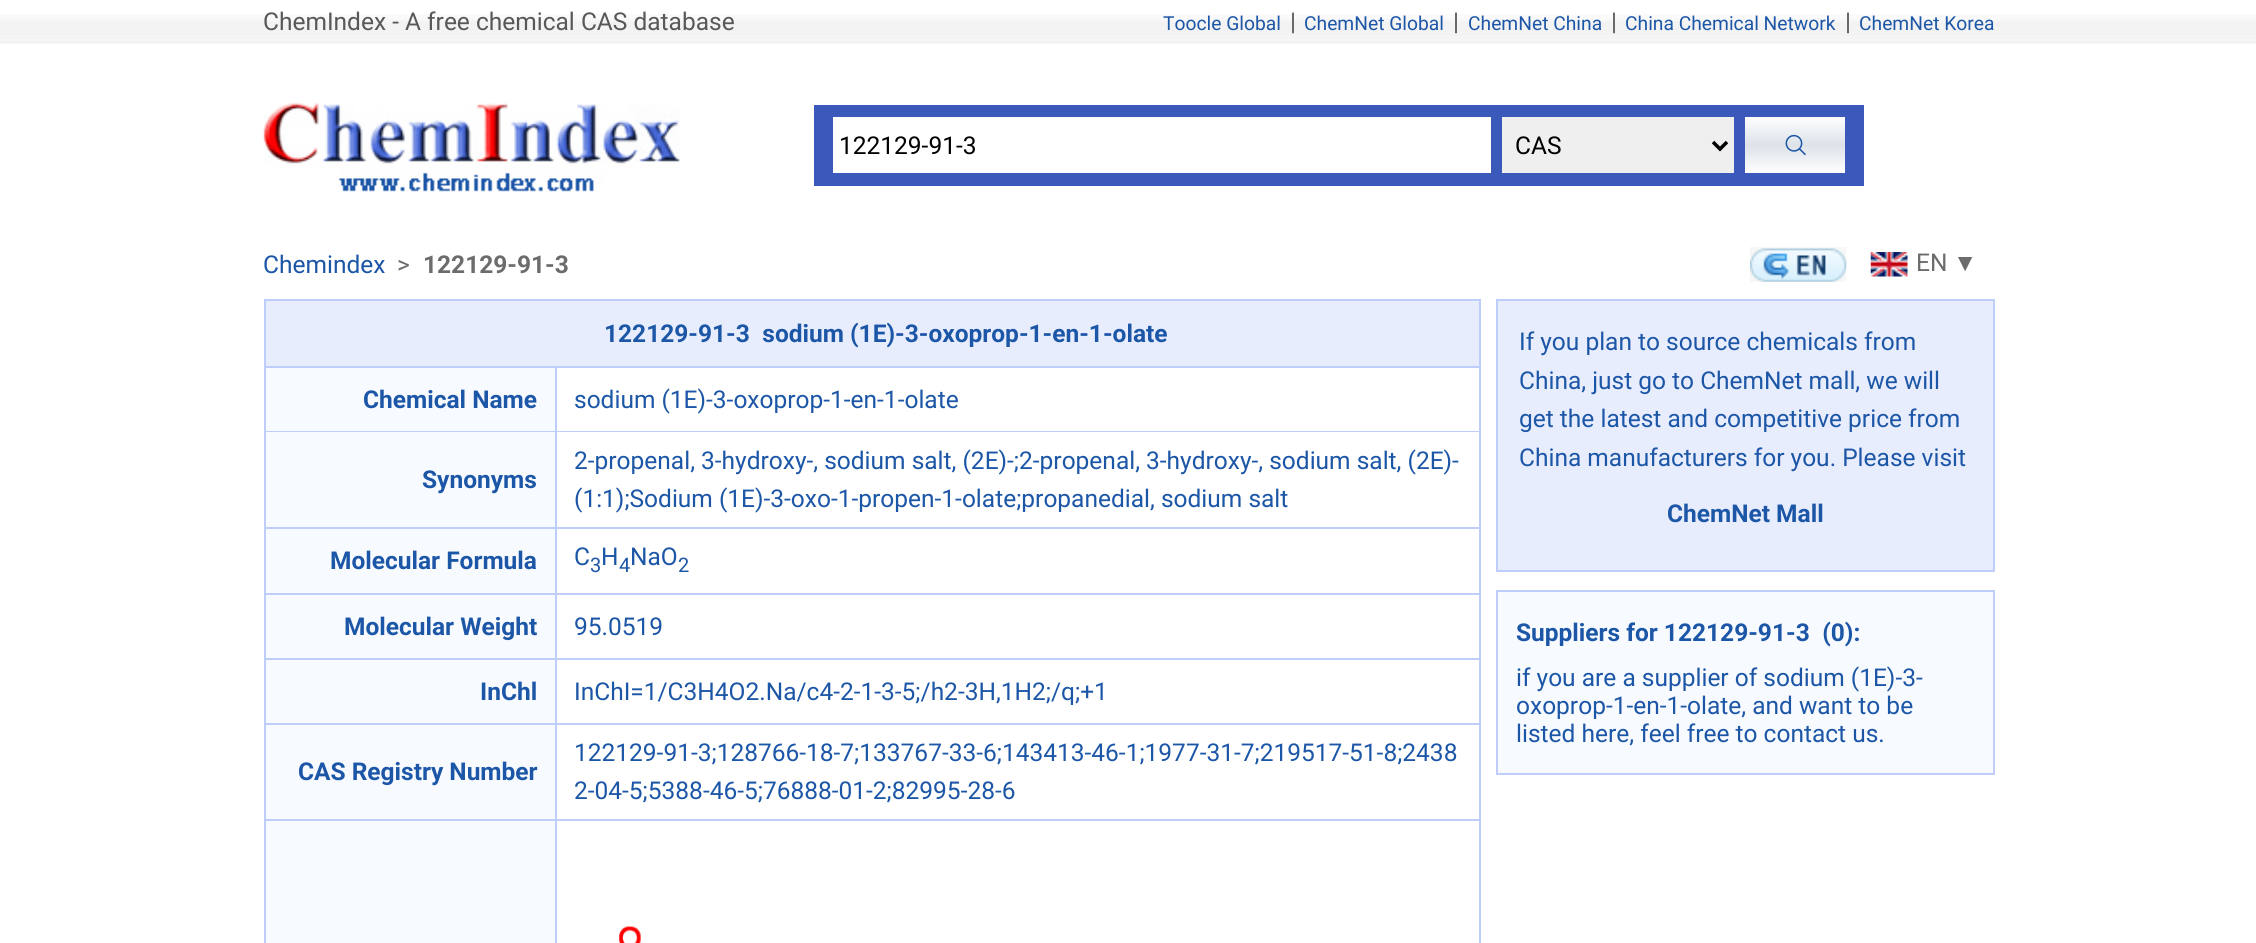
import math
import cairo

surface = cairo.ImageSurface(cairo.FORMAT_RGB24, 2256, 943)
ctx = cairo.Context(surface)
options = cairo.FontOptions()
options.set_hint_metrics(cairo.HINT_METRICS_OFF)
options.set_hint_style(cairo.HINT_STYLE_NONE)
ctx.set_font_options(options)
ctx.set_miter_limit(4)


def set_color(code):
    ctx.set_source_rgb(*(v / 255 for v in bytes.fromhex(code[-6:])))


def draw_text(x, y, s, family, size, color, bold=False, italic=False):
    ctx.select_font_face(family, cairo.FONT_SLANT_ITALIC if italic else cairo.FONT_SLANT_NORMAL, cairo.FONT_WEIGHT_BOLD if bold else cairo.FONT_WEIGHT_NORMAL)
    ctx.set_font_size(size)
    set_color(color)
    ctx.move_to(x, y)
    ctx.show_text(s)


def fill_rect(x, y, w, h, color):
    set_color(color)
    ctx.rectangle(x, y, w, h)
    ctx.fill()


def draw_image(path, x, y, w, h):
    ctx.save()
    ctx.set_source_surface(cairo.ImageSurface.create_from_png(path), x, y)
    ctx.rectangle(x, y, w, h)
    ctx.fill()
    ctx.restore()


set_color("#ffffff")
ctx.paint()
draw_image("assets/img1.png", 0, 14, 2256, 30)
draw_text(263, 30, "ChemIndex - A free chemical CAS database", "Roboto", 24.5, "#585858")
draw_text(1163, 30, "Toocle Global", "Roboto", 19.25, "#1c56a7")
draw_text(1290, 30, "|", "Roboto", 24.5, "#585858")
draw_text(1304, 30, "ChemNet Global", "Roboto", 19.25, "#1c56a7")
draw_text(1453, 30, "|", "Roboto", 24.5, "#585858")
draw_text(1468, 30, "ChemNet China", "Roboto", 19.25, "#1c56a7")
draw_text(1611, 30, "|", "Roboto", 24.5, "#585858")
draw_text(1625, 30, "China Chemical Network", "Roboto", 19.25, "#1c56a7")
draw_text(1845, 30, "|", "Roboto", 24.5, "#585858")
draw_text(1859, 30, "ChemNet Korea", "Roboto", 19.25, "#1c56a7")
draw_image("assets/img2.png", 263, 102, 417, 90)
fill_rect(814, 105, 1050, 81, "#3b59ba")
fill_rect(833, 117, 658, 56, "#ffffff")
draw_text(839, 154, "122129-91-3", "Roboto", 24.5, "#000000")
fill_rect(1502, 117, 232, 56, "#efefef")
ctx.new_path()
ctx.move_to(1713, 142)
ctx.line_to(1720, 149)
ctx.line_to(1727, 142)
set_color("#000000")
ctx.set_line_width(3.5)
ctx.stroke()
draw_text(1515, 154, "CAS", "Roboto", 24.5, "#000000")
gradient = cairo.LinearGradient(1795, 117, 1795, 173)
gradient.add_color_stop_rgba(0, 1, 1, 1, 1)
gradient.add_color_stop_rgba(0.5, 0.863, 0.89, 0.914, 1)
gradient.add_color_stop_rgba(1, 1, 1, 1, 1)
ctx.set_source(gradient)
ctx.rectangle(1745, 117, 100, 56)
ctx.fill()
draw_image("assets/img3.png", 1785, 134, 21, 22)
draw_text(263, 273, "Chemindex", "Roboto", 24.5, "#1c56a7")
draw_text(397, 273, ">", "Roboto", 24.5, "#6c6c6c")
draw_text(423, 273, "122129-91-3", "Roboto", 24.5, "#6c6c6c", bold=True)
draw_image("assets/img4.png", 1750, 247, 97, 35)
draw_image("assets/img5.png", 1870, 252, 38, 25)
draw_text(1916, 271, "EN", "Roboto", 24.5, "#6c6c6c")
draw_text(1953, 271, "▼", "Liberation Sans", 24.5, "#6c6c6c")
fill_rect(264, 299, 1217, 644, "#bfcdfa")
fill_rect(266, 301, 1213, 65, "#e8edfd")
draw_text(604, 342, "122129-91-3 sodium (1E)-3-oxoprop-1-en-1-olate", "Roboto", 24.5, "#1c56a7", bold=True)
fill_rect(266, 368, 289, 63, "#f7faff")
draw_text(363, 408, "Chemical Name", "Roboto", 24.5, "#1c56a7", bold=True)
fill_rect(557, 368, 922, 63, "#ffffff")
draw_text(574, 408, "sodium (1E)-3-oxoprop-1-en-1-olate", "Roboto", 24.5, "#1c56a7")
fill_rect(266, 432, 289, 95, "#f7faff")
draw_text(422, 488, "Synonyms", "Roboto", 24.5, "#1c56a7", bold=True)
fill_rect(557, 432, 922, 95, "#ffffff")
draw_text(574, 469, "2-propenal, 3-hydroxy-, sodium salt, (2E)-;2-propenal, 3-hydroxy-, sodium salt, (2E)-", "Roboto", 24.5, "#1c56a7")
draw_text(574, 507, "(1:1);Sodium (1E)-3-oxo-1-propen-1-olate;propanedial, sodium salt", "Roboto", 24.5, "#1c56a7")
fill_rect(266, 529, 289, 64, "#f7faff")
draw_text(330, 569, "Molecular Formula", "Roboto", 24.5, "#1c56a7", bold=True)
fill_rect(557, 529, 922, 64, "#ffffff")
draw_text(574, 565, "C", "Roboto", 24.5, "#1c56a7")
draw_text(590, 572, "3", "Roboto", 20, "#1c56a7")
draw_text(601, 565, "H", "Roboto", 24.5, "#1c56a7")
draw_text(619, 572, "4", "Roboto", 20, "#1c56a7")
draw_text(630, 565, "NaO", "Roboto", 24.5, "#1c56a7")
draw_text(678, 572, "2", "Roboto", 20, "#1c56a7")
fill_rect(266, 595, 289, 63, "#f7faff")
draw_text(344, 635, "Molecular Weight", "Roboto", 24.5, "#1c56a7", bold=True)
fill_rect(557, 595, 922, 63, "#ffffff")
draw_text(574, 635, "95.0519", "Roboto", 24.5, "#1c56a7")
fill_rect(266, 660, 289, 63, "#f7faff")
draw_text(480, 700, "InChl", "Roboto", 24.5, "#1c56a7", bold=True)
fill_rect(557, 660, 922, 63, "#ffffff")
draw_text(574, 700, "InChI=1/C3H4O2.Na/c4-2-1-3-5;/h2-3H,1H2;/q;+1", "Roboto", 24.5, "#1c56a7")
fill_rect(266, 725, 289, 94, "#f7faff")
draw_text(298, 780, "CAS Registry Number", "Roboto", 24.5, "#1c56a7", bold=True)
fill_rect(557, 725, 922, 94, "#ffffff")
draw_text(574, 761, "122129-91-3;128766-18-7;133767-33-6;143413-46-1;1977-31-7;219517-51-8;2438", "Roboto", 24.5, "#1c56a7")
draw_text(574, 799, "2-04-5;5388-46-5;76888-01-2;82995-28-6", "Roboto", 24.5, "#1c56a7")
fill_rect(266, 821, 289, 122, "#f7faff")
fill_rect(557, 821, 922, 122, "#ffffff")
draw_image("assets/img6.png", 619, 926, 22, 17)
set_color("#e8edfd")
ctx.rectangle(1497, 300, 497, 271)
ctx.fill_preserve()
set_color("#bfcdfa")
ctx.set_line_width(2)
ctx.stroke()
draw_text(1519, 350, "If you plan to source chemicals from", "Roboto", 24.5, "#1c56a7")
draw_text(1519, 389, "China, just go to ChemNet mall, we will", "Roboto", 24.5, "#1c56a7")
draw_text(1519, 427, "get the latest and competitive price from", "Roboto", 24.5, "#1c56a7")
draw_text(1519, 466, "China manufacturers for you. Please visit", "Roboto", 24.5, "#1c56a7")
draw_text(1667, 522, "ChemNet Mall", "Roboto", 24.5, "#1c56a7", bold=True)
set_color("#f7faff")
ctx.rectangle(1497, 591, 497, 183)
ctx.fill_preserve()
set_color("#bfcdfa")
ctx.stroke()
draw_text(1516, 641, "Suppliers for 122129-91-3 (0):", "Roboto", 24.5, "#1c56a7", bold=True)
draw_text(1516, 686, "if you are a supplier of sodium (1E)-3-", "Roboto", 24.5, "#1c56a7")
draw_text(1516, 714, "oxoprop-1-en-1-olate, and want to be", "Roboto", 24.5, "#1c56a7")
draw_text(1516, 742, "listed here, feel free to contact us.", "Roboto", 24.5, "#1c56a7")
surface.write_to_png("output.png")
